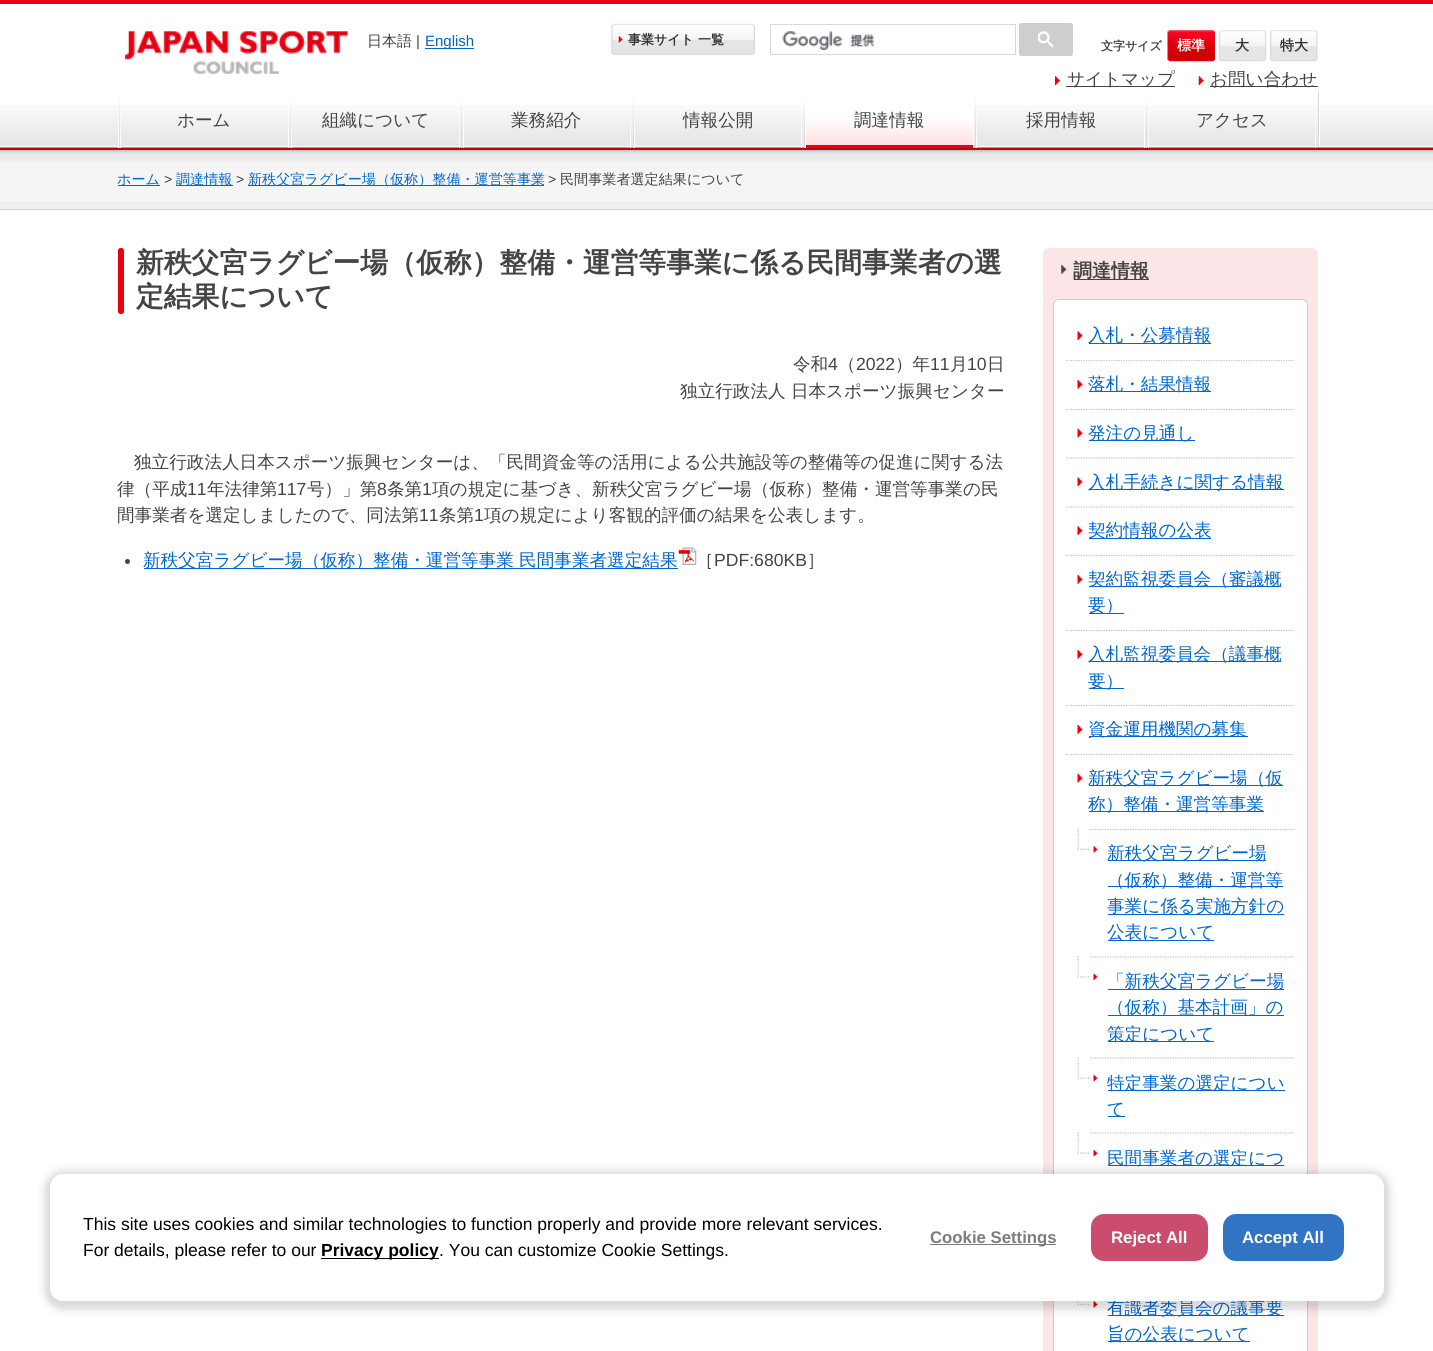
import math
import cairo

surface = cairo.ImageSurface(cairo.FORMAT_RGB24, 1433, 1351)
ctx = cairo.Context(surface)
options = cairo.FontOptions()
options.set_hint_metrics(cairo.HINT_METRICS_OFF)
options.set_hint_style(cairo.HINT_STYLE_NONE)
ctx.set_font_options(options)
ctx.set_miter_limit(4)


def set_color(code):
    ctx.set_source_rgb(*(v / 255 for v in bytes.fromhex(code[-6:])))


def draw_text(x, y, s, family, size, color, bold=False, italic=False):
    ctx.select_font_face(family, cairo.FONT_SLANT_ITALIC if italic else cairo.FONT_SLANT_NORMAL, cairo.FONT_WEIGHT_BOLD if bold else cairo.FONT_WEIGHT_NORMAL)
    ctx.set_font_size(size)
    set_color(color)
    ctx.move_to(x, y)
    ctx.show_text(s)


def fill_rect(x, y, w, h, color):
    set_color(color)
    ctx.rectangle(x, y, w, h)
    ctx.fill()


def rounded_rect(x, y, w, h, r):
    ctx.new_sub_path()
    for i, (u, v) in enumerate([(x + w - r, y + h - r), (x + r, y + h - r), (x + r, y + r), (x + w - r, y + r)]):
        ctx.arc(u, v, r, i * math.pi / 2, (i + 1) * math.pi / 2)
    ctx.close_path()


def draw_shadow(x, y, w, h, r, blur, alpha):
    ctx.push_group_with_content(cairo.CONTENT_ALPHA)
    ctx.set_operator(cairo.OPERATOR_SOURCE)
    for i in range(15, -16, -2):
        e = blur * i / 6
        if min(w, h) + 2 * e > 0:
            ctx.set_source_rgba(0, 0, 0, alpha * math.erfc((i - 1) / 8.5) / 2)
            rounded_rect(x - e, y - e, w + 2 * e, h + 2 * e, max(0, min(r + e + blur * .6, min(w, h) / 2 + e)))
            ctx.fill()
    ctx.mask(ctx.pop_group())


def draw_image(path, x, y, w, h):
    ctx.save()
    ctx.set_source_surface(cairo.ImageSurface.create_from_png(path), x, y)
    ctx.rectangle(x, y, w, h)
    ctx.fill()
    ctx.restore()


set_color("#ffffff")
ctx.paint()
fill_rect(0, 0, 1433, 4, "#e60012")
draw_image("assets/img1.png", 124, 31, 224, 43)
draw_text(367, 46, "日本語", "WenQuanYi Zen Hei Medium", 15, "#444444")
draw_text(416, 46, "|", "Liberation Sans", 15, "#444444")
fill_rect(425, 48, 49, 1, "#0066cc")
draw_text(425, 46, "English", "Liberation Sans", 15, "#0066cc")
draw_image("assets/img2.png", 611, 23, 144, 32)
draw_text(628, 44, "事業サイト", "WenQuanYi Zen Hei", 13, "#333333", bold=True)
draw_text(698, 44, "一覧", "WenQuanYi Zen Hei", 13, "#333333", bold=True)
ctx.rectangle(770.5, 24.5, 245, 30)
set_color("#d9d9d9")
ctx.set_line_width(1)
ctx.stroke()
draw_image("assets/img3.png", 782, 31, 93, 19)
set_color("#cecece")
rounded_rect(1019.5, 23.5, 53, 32, 2)
ctx.fill_preserve()
ctx.stroke()
draw_image("assets/img4.png", 1038, 31, 16, 17)
draw_text(1101, 50, "文字サイズ", "WenQuanYi Zen Hei", 12, "#444444", bold=True)
draw_image("assets/img5.png", 1167, 30, 48, 32)
draw_text(1177, 50, "標準", "WenQuanYi Zen Hei", 14, "#ffffff", bold=True)
draw_image("assets/img6.png", 1218, 30, 49, 32)
draw_text(1235, 50, "大", "WenQuanYi Zen Hei", 14, "#333333", bold=True)
draw_image("assets/img7.png", 1270, 30, 48, 32)
draw_text(1280, 50, "特大", "WenQuanYi Zen Hei", 14, "#333333", bold=True)
draw_image("assets/img8.png", 1055, 76, 5, 9)
fill_rect(1066, 86, 109, 1, "#444444")
draw_text(1067, 85, "サイトマップ", "WenQuanYi Zen Hei Medium", 17.6, "#444444")
draw_image("assets/img9.png", 1198, 76, 6, 9)
fill_rect(1210, 86, 108, 1, "#444444")
draw_text(1210, 85, "お問い合わせ", "WenQuanYi Zen Hei Medium", 17.6, "#444444")
draw_image("assets/img10.png", 0, 105, 1433, 45)
gradient = cairo.LinearGradient(118, 91, 118, 148)
gradient.add_color_stop_rgba(0, 1, 1, 1, 0)
gradient.add_color_stop_rgba(1, 1, 1, 1, 1)
ctx.set_source(gradient)
ctx.rectangle(118, 110, 1, 38)
ctx.fill()
gradient = cairo.LinearGradient(119, 91, 119, 148)
gradient.add_color_stop_rgba(0, 0.859, 0.859, 0.859, 0)
gradient.add_color_stop_rgba(1, 0.859, 0.859, 0.859, 1)
ctx.set_source(gradient)
ctx.rectangle(119, 91, 1, 57)
ctx.fill()
gradient = cairo.LinearGradient(121, 91, 121, 148)
gradient.add_color_stop_rgba(0, 1, 1, 1, 0)
gradient.add_color_stop_rgba(1, 1, 1, 1, 1)
ctx.set_source(gradient)
ctx.rectangle(120, 110, 1, 38)
ctx.fill()
draw_text(177, 126, "ホーム", "WenQuanYi Zen Hei Medium", 17.6, "#444444")
gradient = cairo.LinearGradient(288, 91, 288, 148)
gradient.add_color_stop_rgba(0, 1, 1, 1, 0)
gradient.add_color_stop_rgba(1, 1, 1, 1, 1)
ctx.set_source(gradient)
ctx.rectangle(288, 110, 1, 38)
ctx.fill()
gradient = cairo.LinearGradient(291, 91, 291, 148)
gradient.add_color_stop_rgba(0, 0.859, 0.859, 0.859, 0)
gradient.add_color_stop_rgba(1, 0.859, 0.859, 0.859, 1)
ctx.set_source(gradient)
ctx.rectangle(290, 91, 1, 57)
ctx.fill()
gradient = cairo.LinearGradient(292, 91, 292, 148)
gradient.add_color_stop_rgba(0, 1, 1, 1, 0)
gradient.add_color_stop_rgba(1, 1, 1, 1, 1)
ctx.set_source(gradient)
ctx.rectangle(291, 110, 1, 38)
ctx.fill()
draw_text(322, 126, "組織について", "WenQuanYi Zen Hei Medium", 17.6, "#444444")
gradient = cairo.LinearGradient(459, 91, 459, 148)
gradient.add_color_stop_rgba(0, 1, 1, 1, 0)
gradient.add_color_stop_rgba(1, 1, 1, 1, 1)
ctx.set_source(gradient)
ctx.rectangle(459, 110, 1, 38)
ctx.fill()
gradient = cairo.LinearGradient(462, 91, 462, 148)
gradient.add_color_stop_rgba(0, 0.859, 0.859, 0.859, 0)
gradient.add_color_stop_rgba(1, 0.859, 0.859, 0.859, 1)
ctx.set_source(gradient)
ctx.rectangle(461, 91, 1, 57)
ctx.fill()
gradient = cairo.LinearGradient(463, 91, 463, 148)
gradient.add_color_stop_rgba(0, 1, 1, 1, 0)
gradient.add_color_stop_rgba(1, 1, 1, 1, 1)
ctx.set_source(gradient)
ctx.rectangle(463, 110, 1, 38)
ctx.fill()
draw_text(511, 126, "業務紹介", "WenQuanYi Zen Hei Medium", 17.6, "#444444")
gradient = cairo.LinearGradient(631, 91, 631, 148)
gradient.add_color_stop_rgba(0, 1, 1, 1, 0)
gradient.add_color_stop_rgba(1, 1, 1, 1, 1)
ctx.set_source(gradient)
ctx.rectangle(630, 110, 1, 38)
ctx.fill()
gradient = cairo.LinearGradient(633, 91, 633, 148)
gradient.add_color_stop_rgba(0, 0.859, 0.859, 0.859, 0)
gradient.add_color_stop_rgba(1, 0.859, 0.859, 0.859, 1)
ctx.set_source(gradient)
ctx.rectangle(633, 91, 1, 57)
ctx.fill()
gradient = cairo.LinearGradient(634, 91, 634, 148)
gradient.add_color_stop_rgba(0, 1, 1, 1, 0)
gradient.add_color_stop_rgba(1, 1, 1, 1, 1)
ctx.set_source(gradient)
ctx.rectangle(634, 110, 1, 38)
ctx.fill()
draw_text(683, 126, "情報公開", "WenQuanYi Zen Hei Medium", 17.6, "#444444")
gradient = cairo.LinearGradient(802, 91, 802, 148)
gradient.add_color_stop_rgba(0, 1, 1, 1, 0)
gradient.add_color_stop_rgba(1, 1, 1, 1, 1)
ctx.set_source(gradient)
ctx.rectangle(801, 110, 1, 38)
ctx.fill()
gradient = cairo.LinearGradient(804, 91, 804, 148)
gradient.add_color_stop_rgba(0, 0.859, 0.859, 0.859, 0)
gradient.add_color_stop_rgba(1, 0.859, 0.859, 0.859, 1)
ctx.set_source(gradient)
ctx.rectangle(804, 91, 1, 57)
ctx.fill()
gradient = cairo.LinearGradient(889, 91, 889, 145)
gradient.add_color_stop_rgba(0.5, 1, 1, 1, 1)
gradient.add_color_stop_rgba(1, 0.992, 0.878, 0.886, 1)
ctx.set_source(gradient)
ctx.rectangle(805, 105, 169, 40)
ctx.fill()
fill_rect(805, 145, 169, 3, "#e60012")
draw_text(854, 126, "調達情報", "WenQuanYi Zen Hei Medium", 17.6, "#444444")
gradient = cairo.LinearGradient(806, 91, 806, 148)
gradient.add_color_stop_rgba(0, 1, 1, 1, 0)
gradient.add_color_stop_rgba(1, 1, 1, 1, 1)
ctx.set_source(gradient)
ctx.rectangle(805, 122, 1, 26)
ctx.fill()
gradient = cairo.LinearGradient(973, 91, 973, 148)
gradient.add_color_stop_rgba(0, 1, 1, 1, 0)
gradient.add_color_stop_rgba(1, 1, 1, 1, 1)
ctx.set_source(gradient)
ctx.rectangle(973, 122, 1, 26)
ctx.fill()
gradient = cairo.LinearGradient(976, 91, 976, 148)
gradient.add_color_stop_rgba(0, 0.859, 0.859, 0.859, 0)
gradient.add_color_stop_rgba(1, 0.859, 0.859, 0.859, 1)
ctx.set_source(gradient)
ctx.rectangle(975, 91, 1, 57)
ctx.fill()
gradient = cairo.LinearGradient(977, 91, 977, 148)
gradient.add_color_stop_rgba(0, 1, 1, 1, 0)
gradient.add_color_stop_rgba(1, 1, 1, 1, 1)
ctx.set_source(gradient)
ctx.rectangle(976, 110, 1, 38)
ctx.fill()
draw_text(1026, 126, "採用情報", "WenQuanYi Zen Hei Medium", 17.6, "#444444")
gradient = cairo.LinearGradient(1144, 91, 1144, 148)
gradient.add_color_stop_rgba(0, 1, 1, 1, 0)
gradient.add_color_stop_rgba(1, 1, 1, 1, 1)
ctx.set_source(gradient)
ctx.rectangle(1144, 110, 1, 38)
ctx.fill()
gradient = cairo.LinearGradient(1147, 91, 1147, 148)
gradient.add_color_stop_rgba(0, 0.859, 0.859, 0.859, 0)
gradient.add_color_stop_rgba(1, 0.859, 0.859, 0.859, 1)
ctx.set_source(gradient)
ctx.rectangle(1146, 91, 1, 57)
ctx.fill()
gradient = cairo.LinearGradient(1148, 91, 1148, 148)
gradient.add_color_stop_rgba(0, 1, 1, 1, 0)
gradient.add_color_stop_rgba(1, 1, 1, 1, 1)
ctx.set_source(gradient)
ctx.rectangle(1148, 110, 1, 38)
ctx.fill()
draw_text(1196, 126, "アクセス", "WenQuanYi Zen Hei Medium", 17.6, "#444444")
gradient = cairo.LinearGradient(1316, 91, 1316, 148)
gradient.add_color_stop_rgba(0, 1, 1, 1, 0)
gradient.add_color_stop_rgba(1, 1, 1, 1, 1)
ctx.set_source(gradient)
ctx.rectangle(1315, 110, 1, 38)
ctx.fill()
fill_rect(1318, 91, 1, 55, "#dbdbdb")
fill_rect(1319, 105, 1, 41, "#ffffff")
fill_rect(0, 162, 1433, 39, "#f5f5f5")
draw_image("assets/img11.png", 0, 150, 1433, 12)
fill_rect(0, 201, 1433, 8, "#efefef")
fill_rect(0, 209, 1433, 1, "#d1d1d1")
fill_rect(118, 185, 42, 1, "#0066cc")
draw_text(117, 184, "ホーム", "WenQuanYi Zen Hei Medium", 14.1, "#0066cc")
draw_text(164, 184, ">", "Liberation Sans", 14.1, "#444444")
fill_rect(176, 185, 57, 1, "#0066cc")
draw_text(176, 184, "調達情報", "WenQuanYi Zen Hei Medium", 14.1, "#0066cc")
draw_text(236, 184, ">", "Liberation Sans", 14.1, "#444444")
fill_rect(248, 185, 296, 1, "#0066cc")
draw_text(248, 184, "新秩父宮ラグビー場（仮称）整備・運営等事業", "WenQuanYi Zen Hei Medium", 14.1, "#0066cc")
draw_text(548, 184, ">", "Liberation Sans", 14.1, "#444444")
draw_text(560, 184, "民間事業者選定結果について", "WenQuanYi Zen Hei Medium", 14.1, "#444444")
set_color("#e60012")
rounded_rect(118, 248, 6, 66, 2.5)
ctx.fill()
draw_text(136, 272, "新秩父宮ラグビー場（仮称）整備・運営等事業に係る民間事業者の選", "WenQuanYi Zen Hei", 27.8, "#444444", bold=True)
draw_text(136, 306, "定結果について", "WenQuanYi Zen Hei", 27.8, "#444444", bold=True)
draw_text(793, 370, "令和", "WenQuanYi Zen Hei Medium", 17.6, "#444444")
draw_text(828, 370, "4", "Liberation Sans", 17.6, "#444444")
draw_text(838, 370, "（", "WenQuanYi Zen Hei Medium", 17.6, "#444444")
draw_text(856, 370, "2022", "Liberation Sans", 17.6, "#444444")
draw_text(895, 370, "）年", "WenQuanYi Zen Hei Medium", 17.6, "#444444")
draw_text(930, 370, "11", "Liberation Sans", 17.6, "#444444")
draw_text(950, 370, "月", "WenQuanYi Zen Hei Medium", 17.6, "#444444")
draw_text(967, 370, "10", "Liberation Sans", 17.6, "#444444")
draw_text(987, 370, "日", "WenQuanYi Zen Hei Medium", 17.6, "#444444")
draw_text(680, 397, "独立行政法人 日本スポーツ振興センター", "WenQuanYi Zen Hei Medium", 17.6, "#444444")
draw_text(134, 468, "独立行政法人日本スポーツ振興センターは、「民間資金等の活用による公共施設等の整備等の促進に関する法", "WenQuanYi Zen Hei Medium", 17.6, "#444444")
draw_text(117, 495, "律（平成", "WenQuanYi Zen Hei Medium", 17.6, "#444444")
draw_text(187, 495, "11", "Liberation Sans", 17.6, "#444444")
draw_text(207, 495, "年法律第", "WenQuanYi Zen Hei Medium", 17.6, "#444444")
draw_text(277, 495, "117", "Liberation Sans", 17.6, "#444444")
draw_text(307, 495, "号）」第", "WenQuanYi Zen Hei Medium", 17.6, "#444444")
draw_text(377, 495, "8", "Liberation Sans", 17.6, "#444444")
draw_text(387, 495, "条第", "WenQuanYi Zen Hei Medium", 17.6, "#444444")
draw_text(422, 495, "1", "Liberation Sans", 17.6, "#444444")
draw_text(432, 495, "項の規定に基づき、新秩父宮ラグビー場（仮称）整備・運営等事業の民", "WenQuanYi Zen Hei Medium", 17.6, "#444444")
draw_text(117, 521, "間事業者を選定しましたので、同法第", "WenQuanYi Zen Hei Medium", 17.6, "#444444")
draw_text(419, 521, "11", "Liberation Sans", 17.6, "#444444")
draw_text(439, 521, "条第", "WenQuanYi Zen Hei Medium", 17.6, "#444444")
draw_text(474, 521, "1", "Liberation Sans", 17.6, "#444444")
draw_text(484, 521, "項の規定により客観的評価の結果を公表します。", "WenQuanYi Zen Hei Medium", 17.6, "#444444")
ctx.new_path()
ctx.arc(127.5, 561.5, 2.5, 0, 2 * math.pi)
ctx.fill()
fill_rect(144, 568, 534, 1, "#0066cc")
draw_text(143, 566, "新秩父宮ラグビー場（仮称）整備・運営等事業 民間事業者選定結果", "WenQuanYi Zen Hei Medium", 17.6, "#0066cc")
draw_image("assets/img12.png", 678, 547, 19, 18)
draw_text(696, 566, "［", "WenQuanYi Zen Hei Medium", 17.6, "#444444")
draw_text(714, 566, "PDF:680KB", "Liberation Sans", 17.6, "#444444")
draw_text(807, 566, "］", "WenQuanYi Zen Hei Medium", 17.6, "#444444")
set_color("#fce5e7")
rounded_rect(1043, 248, 275, 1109, 6)
ctx.fill()
draw_image("assets/img13.png", 1061, 265, 6, 9)
fill_rect(1074, 279, 75, 1, "#444444")
draw_text(1073, 277, "調達情報", "WenQuanYi Zen Hei", 19, "#444444", bold=True)
set_color("#ffffff")
rounded_rect(1053.5, 299.5, 254, 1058, 5.5)
ctx.fill_preserve()
set_color("#cccccc")
ctx.stroke()
draw_image("assets/img14.png", 1077, 331, 6, 9)
fill_rect(1089, 343, 122, 1, "#0066cc")
draw_text(1088, 341, "入札・公募情報", "WenQuanYi Zen Hei Medium", 17.6, "#0066cc")
ctx.new_path()
ctx.move_to(1066, 360.5)
ctx.line_to(1294, 360.5)
set_color("#c2c2c2")
ctx.set_line_width(1.2)
ctx.set_dash([1.25, 1.25])
ctx.stroke()
draw_image("assets/img15.png", 1077, 380, 6, 9)
fill_rect(1089, 391, 122, 1, "#0066cc")
draw_text(1088, 390, "落札・結果情報", "WenQuanYi Zen Hei Medium", 17.6, "#0066cc")
ctx.new_path()
ctx.move_to(1066, 409.5)
ctx.line_to(1294, 409.5)
set_color("#c2c2c2")
ctx.stroke()
draw_image("assets/img16.png", 1077, 428, 6, 10)
fill_rect(1089, 440, 106, 1, "#0066cc")
draw_text(1088, 439, "発注の見通し", "WenQuanYi Zen Hei Medium", 17.6, "#0066cc")
ctx.new_path()
ctx.move_to(1066, 458)
ctx.line_to(1294, 458)
set_color("#c2c2c2")
ctx.stroke()
draw_image("assets/img17.png", 1077, 477, 6, 10)
fill_rect(1089, 489, 195, 1, "#0066cc")
draw_text(1088, 488, "入札手続きに関する情報", "WenQuanYi Zen Hei Medium", 17.6, "#0066cc")
ctx.new_path()
ctx.move_to(1066, 507)
ctx.line_to(1294, 507)
set_color("#c2c2c2")
ctx.stroke()
draw_image("assets/img14.png", 1077, 526, 6, 9)
fill_rect(1089, 538, 122, 1, "#0066cc")
draw_text(1088, 536, "契約情報の公表", "WenQuanYi Zen Hei Medium", 17.6, "#0066cc")
ctx.new_path()
ctx.move_to(1066, 555.5)
ctx.line_to(1294, 555.5)
set_color("#c2c2c2")
ctx.stroke()
draw_image("assets/img15.png", 1077, 575, 6, 9)
fill_rect(1089, 586, 192, 1, "#0066cc")
draw_text(1088, 585, "契約監視委員会（審議概", "WenQuanYi Zen Hei Medium", 17.6, "#0066cc")
fill_rect(1089, 613, 35, 1, "#0066cc")
draw_text(1088, 611, "要）", "WenQuanYi Zen Hei Medium", 17.6, "#0066cc")
ctx.new_path()
ctx.move_to(1066, 630.5)
ctx.line_to(1294, 630.5)
set_color("#c2c2c2")
ctx.stroke()
draw_image("assets/img15.png", 1077, 650, 6, 9)
fill_rect(1089, 661, 192, 1, "#0066cc")
draw_text(1088, 660, "入札監視委員会（議事概", "WenQuanYi Zen Hei Medium", 17.6, "#0066cc")
fill_rect(1089, 688, 35, 1, "#0066cc")
draw_text(1088, 687, "要）", "WenQuanYi Zen Hei Medium", 17.6, "#0066cc")
ctx.new_path()
ctx.move_to(1066, 705.5)
ctx.line_to(1294, 705.5)
set_color("#c2c2c2")
ctx.stroke()
draw_image("assets/img15.png", 1077, 725, 6, 9)
fill_rect(1089, 736, 159, 1, "#0066cc")
draw_text(1088, 735, "資金運用機関の募集", "WenQuanYi Zen Hei Medium", 17.6, "#0066cc")
ctx.new_path()
ctx.move_to(1066, 754.5)
ctx.line_to(1294, 754.5)
set_color("#c2c2c2")
ctx.stroke()
draw_image("assets/img16.png", 1077, 773, 6, 10)
fill_rect(1089, 785, 194, 1, "#0066cc")
draw_text(1088, 784, "新秩父宮ラグビー場（仮", "WenQuanYi Zen Hei Medium", 17.6, "#0066cc")
fill_rect(1089, 811, 175, 1, "#0066cc")
draw_text(1088, 810, "称）整備・運営等事業", "WenQuanYi Zen Hei Medium", 17.6, "#0066cc")
draw_image("assets/img18.png", 1077, 828, 21, 25)
ctx.new_path()
ctx.move_to(1090, 829.5)
ctx.line_to(1294, 829.5)
set_color("#c2c2c2")
ctx.stroke()
fill_rect(1108, 860, 158, 1, "#0066cc")
draw_text(1107, 859, "新秩父宮ラグビー場", "WenQuanYi Zen Hei Medium", 17.6, "#0066cc")
fill_rect(1108, 886, 175, 1, "#0066cc")
draw_text(1107, 886, "（仮称）整備・運営等", "WenQuanYi Zen Hei Medium", 17.6, "#0066cc")
fill_rect(1108, 914, 176, 1, "#0066cc")
draw_text(1107, 912, "事業に係る実施方針の", "WenQuanYi Zen Hei Medium", 17.6, "#0066cc")
fill_rect(1108, 940, 106, 1, "#0066cc")
draw_text(1107, 938, "公表について", "WenQuanYi Zen Hei Medium", 17.6, "#0066cc")
draw_image("assets/img19.png", 1077, 956, 21, 24)
ctx.new_path()
ctx.move_to(1090, 957)
ctx.line_to(1294, 957)
set_color("#c2c2c2")
ctx.stroke()
fill_rect(1108, 989, 176, 1, "#0066cc")
draw_text(1107, 987, "「新秩父宮ラグビー場", "WenQuanYi Zen Hei Medium", 17.6, "#0066cc")
fill_rect(1108, 1015, 176, 1, "#0066cc")
draw_text(1107, 1013, "（仮称）基本計画」の", "WenQuanYi Zen Hei Medium", 17.6, "#0066cc")
fill_rect(1108, 1041, 106, 1, "#0066cc")
draw_text(1107, 1040, "策定について", "WenQuanYi Zen Hei Medium", 17.6, "#0066cc")
draw_image("assets/img20.png", 1077, 1057, 21, 25)
ctx.new_path()
ctx.move_to(1090, 1058)
ctx.line_to(1294, 1058)
set_color("#c2c2c2")
ctx.stroke()
fill_rect(1108, 1090, 177, 1, "#0066cc")
draw_text(1107, 1089, "特定事業の選定につい", "WenQuanYi Zen Hei Medium", 17.6, "#0066cc")
fill_rect(1108, 1116, 17, 1, "#0066cc")
draw_text(1107, 1115, "て", "WenQuanYi Zen Hei Medium", 17.6, "#0066cc")
draw_image("assets/img20.png", 1077, 1132, 21, 25)
ctx.new_path()
ctx.move_to(1090, 1133)
ctx.line_to(1294, 1133)
set_color("#c2c2c2")
ctx.stroke()
fill_rect(1108, 1165, 176, 1, "#0066cc")
draw_text(1107, 1164, "民間事業者の選定につ", "WenQuanYi Zen Hei Medium", 17.6, "#0066cc")
draw_image("assets/img21.png", 1077, 1301, 21, 7)
fill_rect(1108, 1315, 176, 1, "#0066cc")
draw_text(1107, 1314, "有識者委員会の議事要", "WenQuanYi Zen Hei Medium", 17.6, "#0066cc")
fill_rect(1108, 1341, 142, 1, "#0066cc")
draw_text(1107, 1340, "旨の公表について", "WenQuanYi Zen Hei Medium", 17.6, "#0066cc")
set_color("#000000")
draw_shadow(46, 1173, 1342, 135, 16, 2, 0.05)
draw_shadow(43, 1169, 1348, 142, 20, 4, 0.1)
set_color("#ffffff")
rounded_rect(50, 1174, 1334, 127, 13)
ctx.fill()
draw_text(83, 1230, "This site uses cookies and similar technologies to function properly and provide more relevant services.", "Liberation Sans", 17.5, "#000000")
draw_text(83, 1256, "For details, please refer to our", "Liberation Sans", 17.5, "#000000")
fill_rect(321, 1258, 118, 1, "#000000")
draw_text(321, 1256, "Privacy policy", "Liberation Sans", 17.5, "#000000", bold=True)
draw_text(439, 1256, ". You can customize Cookie Settings.", "Liberation Sans", 17.5, "#000000")
fill_rect(930, 1244, 126, 1, "#7c7c7c")
draw_text(930, 1243, "Cookie Settings", "Liberation Sans", 16.75, "#7c7c7c", bold=True)
set_color("#cb4d6e")
rounded_rect(1091, 1214, 117, 47, 13)
ctx.fill()
draw_text(1111, 1243, "Reject All", "Liberation Sans", 16.75, "#ffffff", bold=True)
set_color("#3174c3")
rounded_rect(1223, 1214, 121, 47, 13)
ctx.fill()
draw_text(1242, 1243, "Accept All", "Liberation Sans", 16.75, "#ffffff", bold=True)
surface.write_to_png("output.png")
